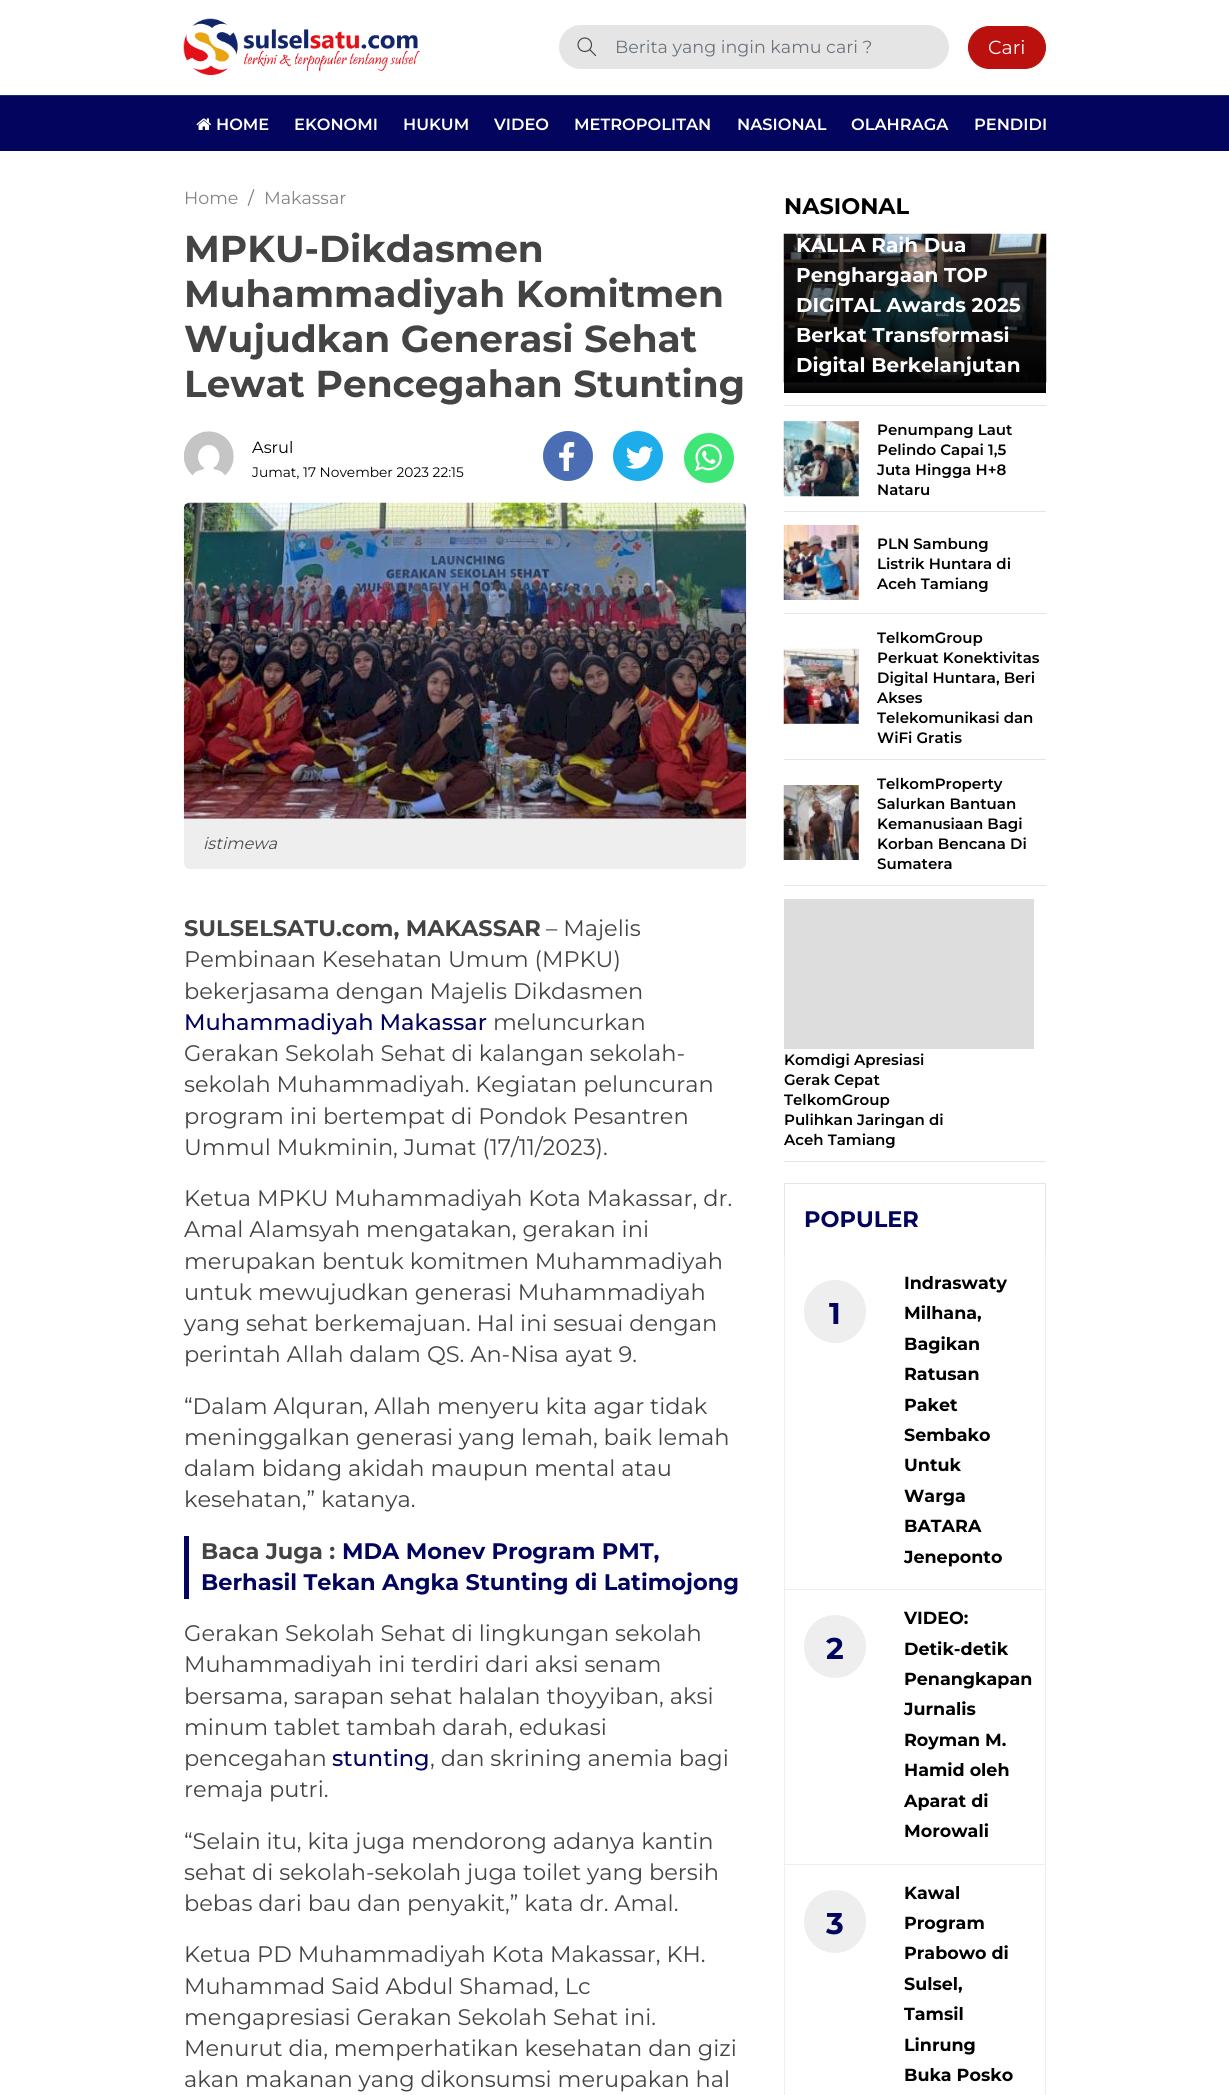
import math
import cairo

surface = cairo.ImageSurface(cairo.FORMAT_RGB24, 1229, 2095)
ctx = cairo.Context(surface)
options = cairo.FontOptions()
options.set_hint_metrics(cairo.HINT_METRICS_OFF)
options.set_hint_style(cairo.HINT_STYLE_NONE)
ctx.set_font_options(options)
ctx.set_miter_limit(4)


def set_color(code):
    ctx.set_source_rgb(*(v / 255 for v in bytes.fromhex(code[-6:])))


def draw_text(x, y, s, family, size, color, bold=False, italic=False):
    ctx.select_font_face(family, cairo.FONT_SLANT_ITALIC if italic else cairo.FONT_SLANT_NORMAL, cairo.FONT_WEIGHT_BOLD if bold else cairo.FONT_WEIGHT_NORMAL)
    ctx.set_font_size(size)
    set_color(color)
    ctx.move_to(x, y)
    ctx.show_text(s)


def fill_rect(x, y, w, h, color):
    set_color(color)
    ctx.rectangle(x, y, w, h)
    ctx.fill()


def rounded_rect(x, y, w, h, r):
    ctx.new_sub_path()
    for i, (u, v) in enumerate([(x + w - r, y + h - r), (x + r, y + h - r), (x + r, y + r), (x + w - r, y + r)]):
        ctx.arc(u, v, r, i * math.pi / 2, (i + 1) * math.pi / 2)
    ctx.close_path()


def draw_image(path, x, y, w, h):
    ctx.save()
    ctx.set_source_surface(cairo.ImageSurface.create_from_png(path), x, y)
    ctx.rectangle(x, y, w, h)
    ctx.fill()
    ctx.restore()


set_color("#ffffff")
ctx.paint()
draw_image("assets/img1.png", 183, 18, 237, 57)
set_color("#e5e5e5")
rounded_rect(559, 25, 390, 44, 22)
ctx.fill()
draw_image("assets/img2.png", 577, 37, 20, 20)
draw_text(615, 53, "Berita yang ingin kamu cari ?", "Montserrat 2 Thin", 17.5, "#6c757d")
set_color("#ba100e")
rounded_rect(968.5, 26.5, 77, 42, 21)
ctx.fill_preserve()
ctx.set_line_width(1)
ctx.stroke()
draw_text(988, 54, "Cari", "Montserrat 2 Thin", 19, "#ffffff")
fill_rect(0, 96, 1229, 55, "#03045e")
fill_rect(0, 95, 1229, 1, "#152b6a")
draw_image("assets/img3.png", 196, 118, 16, 12)
draw_text(216, 130, "HOME", "Montserrat Thin", 16.25, "#ffffff")
draw_text(294, 130, "EKONOMI", "Montserrat Thin", 16.25, "#ffffff")
draw_text(403, 130, "HUKUM", "Montserrat Thin", 16.25, "#ffffff")
draw_text(494, 130, "VIDEO", "Montserrat Thin", 16.25, "#ffffff")
draw_text(574, 130, "METROPOLITAN", "Montserrat Thin", 16.25, "#ffffff")
draw_text(737, 130, "NASIONAL", "Montserrat Thin", 16.25, "#ffffff")
draw_text(851, 130, "OLAHRAGA", "Montserrat Thin", 16.25, "#ffffff")
draw_text(974, 130, "PENDIDI", "Montserrat Thin", 16.25, "#ffffff")
draw_text(184, 204, "Home", "Montserrat 2 Thin", 17.5, "#848484")
draw_text(248, 204, "/", "Montserrat 2 Thin", 17.5, "#6c757d")
draw_text(264, 204, "Makassar", "Montserrat 2 Thin", 17.5, "#848484")
draw_text(184, 262, "MPKU-Dikdasmen", "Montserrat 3 Thin", 37.5, "#444444")
draw_text(184, 307, "Muhammadiyah Komitmen", "Montserrat 3 Thin", 37.5, "#444444")
draw_text(184, 352, "Wujudkan Generasi Sehat", "Montserrat 3 Thin", 37.5, "#444444")
draw_text(184, 397, "Lewat Pencegahan Stunting", "Montserrat 3 Thin", 37.5, "#444444")
draw_image("assets/img4.png", 183, 431, 51, 45)
draw_text(252, 453, "Asrul", "Montserrat 2 Thin", 16.25, "#000000")
draw_text(252, 477, "Jumat, 17 November 2023 22:15", "Montserrat 2 Thin", 13.75, "#000000")
set_color("#4a6db4")
ctx.new_path()
ctx.arc(568, 456, 25, 0, 2 * math.pi)
ctx.fill()
draw_image("assets/img5.png", 559, 442, 16, 29)
set_color("#1dadeb")
ctx.arc(638, 456, 25, 0, 2 * math.pi)
ctx.fill()
draw_image("assets/img6.png", 626, 446, 28, 23)
set_color("#3fe675")
ctx.arc(709, 458, 25, 0, 2 * math.pi)
ctx.fill()
draw_image("assets/img7.png", 695, 444, 27, 27)
draw_image("assets/img8.png", 183, 502, 564, 317)
set_color("#eeeeee")
ctx.new_path()
ctx.move_to(184, 819)
ctx.line_to(746, 819)
ctx.line_to(746, 863)
ctx.curve_to(746, 866.5, 743.5, 869, 740, 869)
ctx.line_to(190, 869)
ctx.curve_to(186.5, 869, 184, 866.5, 184, 863)
ctx.close_path()
ctx.fill()
draw_text(203, 849, "istimewa", "Montserrat Thin", 16.25, "#4a4a4a", italic=True)
draw_text(184, 936, "SULSELSATU.com, MAKASSAR", "Montserrat 3 Thin", 22.5, "#444444")
draw_text(546, 936, "– Majelis", "Montserrat 2 Thin", 22.5, "#444444")
draw_text(184, 967, "Pembinaan Kesehatan Umum (MPKU)", "Montserrat 2 Thin", 22.5, "#444444")
draw_text(184, 999, "bekerjasama dengan Majelis Dikdasmen", "Montserrat 2 Thin", 22.5, "#444444")
draw_text(184, 1030, "Muhammadiyah Makassar", "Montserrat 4 Thin", 22.5, "#03045e")
draw_text(493, 1030, "meluncurkan", "Montserrat 2 Thin", 22.5, "#444444")
draw_text(184, 1061, "Gerakan Sekolah Sehat di kalangan sekolah-", "Montserrat 2 Thin", 22.5, "#444444")
draw_text(184, 1092, "sekolah Muhammadiyah. Kegiatan peluncuran", "Montserrat 2 Thin", 22.5, "#444444")
draw_text(184, 1124, "program ini bertempat di Pondok Pesantren", "Montserrat 2 Thin", 22.5, "#444444")
draw_text(184, 1155, "Ummul Mukminin, Jumat (17/11/2023).", "Montserrat 2 Thin", 22.5, "#444444")
draw_text(184, 1206, "Ketua MPKU Muhammadiyah Kota Makassar, dr.", "Montserrat 2 Thin", 22.5, "#444444")
draw_text(184, 1237, "Amal Alamsyah mengatakan, gerakan ini", "Montserrat 2 Thin", 22.5, "#444444")
draw_text(184, 1269, "merupakan bentuk komitmen Muhammadiyah", "Montserrat 2 Thin", 22.5, "#444444")
draw_text(184, 1300, "untuk mewujudkan generasi Muhammadiyah", "Montserrat 2 Thin", 22.5, "#444444")
draw_text(184, 1331, "yang sehat berkemajuan. Hal ini sesuai dengan", "Montserrat 2 Thin", 22.5, "#444444")
draw_text(184, 1362, "perintah Allah dalam QS. An-Nisa ayat 9.", "Montserrat 2 Thin", 22.5, "#444444")
draw_text(184, 1414, "“Dalam Alquran, Allah menyeru kita agar tidak", "Montserrat 2 Thin", 22.5, "#444444")
draw_text(184, 1445, "meninggalkan generasi yang lemah, baik lemah", "Montserrat 2 Thin", 22.5, "#444444")
draw_text(184, 1476, "dalam bidang akidah maupun mental atau", "Montserrat 2 Thin", 22.5, "#444444")
draw_text(184, 1507, "kesehatan,” katanya.", "Montserrat 2 Thin", 22.5, "#444444")
fill_rect(184, 1536, 5, 63, "#03045e")
draw_text(201, 1559, "Baca Juga :", "Montserrat 3 Thin", 22.5, "#444444")
draw_text(342, 1559, "MDA Monev Program PMT,", "Montserrat 3 Thin", 22.5, "#03045e")
draw_text(201, 1590, "Berhasil Tekan Angka Stunting di Latimojong", "Montserrat 3 Thin", 22.5, "#03045e")
draw_text(184, 1641, "Gerakan Sekolah Sehat di lingkungan sekolah", "Montserrat 2 Thin", 22.5, "#444444")
draw_text(184, 1672, "Muhammadiyah ini terdiri dari aksi senam", "Montserrat 2 Thin", 22.5, "#444444")
draw_text(184, 1704, "bersama, sarapan sehat halalan thoyyiban, aksi", "Montserrat 2 Thin", 22.5, "#444444")
draw_text(184, 1735, "minum tablet tambah darah, edukasi", "Montserrat 2 Thin", 22.5, "#444444")
draw_text(184, 1766, "pencegahan", "Montserrat 2 Thin", 22.5, "#444444")
draw_text(332, 1766, "stunting", "Montserrat 4 Thin", 22.5, "#03045e")
draw_text(430, 1766, ", dan skrining anemia bagi", "Montserrat 2 Thin", 22.5, "#444444")
draw_text(184, 1797, "remaja putri.", "Montserrat 2 Thin", 22.5, "#444444")
draw_text(184, 1849, "“Selain itu, kita juga mendorong adanya kantin", "Montserrat 2 Thin", 22.5, "#444444")
draw_text(184, 1880, "sehat di sekolah-sekolah juga toilet yang bersih", "Montserrat 2 Thin", 22.5, "#444444")
draw_text(184, 1911, "bebas dari bau dan penyakit,” kata dr. Amal.", "Montserrat 2 Thin", 22.5, "#444444")
draw_text(184, 1962, "Ketua PD Muhammadiyah Kota Makassar, KH.", "Montserrat 2 Thin", 22.5, "#444444")
draw_text(184, 1994, "Muhammad Said Abdul Shamad, Lc", "Montserrat 2 Thin", 22.5, "#444444")
draw_text(184, 2025, "mengapresiasi Gerakan Sekolah Sehat ini.", "Montserrat 2 Thin", 22.5, "#444444")
draw_text(184, 2056, "Menurut dia, memperhatikan kesehatan dan gizi", "Montserrat 2 Thin", 22.5, "#444444")
draw_text(184, 2087, "akan makanan yang dikonsumsi merupakan hal", "Montserrat 2 Thin", 22.5, "#444444")
draw_text(784, 214, "NASIONAL", "Montserrat 3 Thin", 22.5, "#000000")
draw_image("assets/img9.png", 783, 233, 264, 150)
gradient = cairo.LinearGradient(915, 234, 915, 393)
gradient.add_color_stop_rgba(0, 0, 0, 0, 0)
gradient.add_color_stop_rgba(1, 0, 0, 0, 1)
ctx.set_source(gradient)
ctx.rectangle(784, 237, 262, 156)
ctx.fill()
draw_text(796, 252, "KALLA Raih Dua", "Montserrat 3 Thin", 20, "#ffffff")
draw_text(796, 282, "Penghargaan TOP", "Montserrat 3 Thin", 20, "#ffffff")
draw_text(796, 312, "DIGITAL Awards 2025", "Montserrat 3 Thin", 20, "#ffffff")
draw_text(796, 342, "Berkat Transformasi", "Montserrat 3 Thin", 20, "#ffffff")
draw_text(796, 372, "Digital Berkelanjutan", "Montserrat 3 Thin", 20, "#ffffff")
fill_rect(784, 405, 262, 1, "#e5e5e5")
fill_rect(784, 511, 262, 1, "#e5e5e5")
fill_rect(784, 421, 75, 75, "#dddddd")
draw_image("assets/img10.png", 783, 421, 76, 76)
draw_text(877, 435, "Penumpang Laut", "Montserrat Thin", 15, "#000000")
draw_text(877, 455, "Pelindo Capai 1,5", "Montserrat Thin", 15, "#000000")
draw_text(877, 475, "Juta Hingga H+8", "Montserrat Thin", 15, "#000000")
draw_text(877, 495, "Nataru", "Montserrat Thin", 15, "#000000")
fill_rect(784, 613, 262, 1, "#e5e5e5")
draw_image("assets/img11.png", 783, 525, 76, 75)
draw_text(877, 549, "PLN Sambung", "Montserrat Thin", 15, "#000000")
draw_text(877, 569, "Listrik Huntara di", "Montserrat Thin", 15, "#000000")
draw_text(877, 589, "Aceh Tamiang", "Montserrat Thin", 15, "#000000")
fill_rect(784, 759, 262, 1, "#e5e5e5")
fill_rect(784, 649, 75, 75, "#dddddd")
draw_image("assets/img12.png", 783, 648, 76, 76)
draw_text(877, 643, "TelkomGroup", "Montserrat Thin", 15, "#000000")
draw_text(877, 663, "Perkuat Konektivitas", "Montserrat Thin", 15, "#000000")
draw_text(877, 683, "Digital Huntara, Beri", "Montserrat Thin", 15, "#000000")
draw_text(877, 703, "Akses", "Montserrat Thin", 15, "#000000")
draw_text(877, 723, "Telekomunikasi dan", "Montserrat Thin", 15, "#000000")
draw_text(877, 743, "WiFi Gratis", "Montserrat Thin", 15, "#000000")
fill_rect(784, 885, 262, 1, "#e5e5e5")
draw_image("assets/img13.png", 783, 785, 76, 75)
draw_text(877, 789, "TelkomProperty", "Montserrat Thin", 15, "#000000")
draw_text(877, 809, "Salurkan Bantuan", "Montserrat Thin", 15, "#000000")
draw_text(877, 829, "Kemanusiaan Bagi", "Montserrat Thin", 15, "#000000")
draw_text(877, 849, "Korban Bencana Di", "Montserrat Thin", 15, "#000000")
draw_text(877, 869, "Sumatera", "Montserrat Thin", 15, "#000000")
fill_rect(784, 1161, 262, 1, "#e5e5e5")
fill_rect(784, 899, 250, 150, "#dddddd")
draw_text(784, 1065, "Komdigi Apresiasi", "Montserrat Thin", 15, "#000000")
draw_text(784, 1085, "Gerak Cepat", "Montserrat Thin", 15, "#000000")
draw_text(784, 1105, "TelkomGroup", "Montserrat Thin", 15, "#000000")
draw_text(784, 1125, "Pulihkan Jaringan di", "Montserrat Thin", 15, "#000000")
draw_text(784, 1145, "Aceh Tamiang", "Montserrat Thin", 15, "#000000")
fill_rect(784, 1183, 262, 1, "#e5e5e5")
fill_rect(1045, 1183, 1, 72, "#e5e5e5")
fill_rect(784, 1183, 1, 72, "#e5e5e5")
draw_text(804, 1227, "POPULER", "Montserrat 3 Thin", 22.5, "#03045e")
fill_rect(1045, 1255, 1, 840, "#eeeeee")
fill_rect(784, 1589, 262, 1, "#eeeeee")
fill_rect(784, 1255, 1, 335, "#eeeeee")
rounded_rect(804, 1280, 62, 63, 31)
ctx.fill()
draw_text(829, 1324, "1", "Montserrat 3 Thin", 30, "#03045e")
draw_text(904, 1289, "Indraswaty", "Montserrat 3 Thin", 17.5, "#000000")
draw_text(904, 1319, "Milhana,", "Montserrat 3 Thin", 17.5, "#000000")
draw_text(904, 1350, "Bagikan", "Montserrat 3 Thin", 17.5, "#000000")
draw_text(904, 1380, "Ratusan", "Montserrat 3 Thin", 17.5, "#000000")
draw_text(904, 1411, "Paket", "Montserrat 3 Thin", 17.5, "#000000")
draw_text(904, 1441, "Sembako", "Montserrat 3 Thin", 17.5, "#000000")
draw_text(904, 1471, "Untuk", "Montserrat 3 Thin", 17.5, "#000000")
draw_text(904, 1502, "Warga", "Montserrat 3 Thin", 17.5, "#000000")
draw_text(904, 1532, "BATARA", "Montserrat 3 Thin", 17.5, "#000000")
draw_text(904, 1563, "Jeneponto", "Montserrat 3 Thin", 17.5, "#000000")
fill_rect(784, 1864, 262, 1, "#eeeeee")
fill_rect(784, 1590, 1, 505, "#eeeeee")
rounded_rect(804, 1615, 62, 63, 31)
ctx.fill()
draw_text(826, 1659, "2", "Montserrat 3 Thin", 30, "#03045e")
draw_text(904, 1624, "VIDEO:", "Montserrat 3 Thin", 17.5, "#000000")
draw_text(904, 1655, "Detik-detik", "Montserrat 3 Thin", 17.5, "#000000")
draw_text(904, 1685, "Penangkapan", "Montserrat 3 Thin", 17.5, "#000000")
draw_text(904, 1715, "Jurnalis", "Montserrat 3 Thin", 17.5, "#000000")
draw_text(904, 1746, "Royman M.", "Montserrat 3 Thin", 17.5, "#000000")
draw_text(904, 1776, "Hamid oleh", "Montserrat 3 Thin", 17.5, "#000000")
draw_text(904, 1807, "Aparat di", "Montserrat 3 Thin", 17.5, "#000000")
draw_text(904, 1837, "Morowali", "Montserrat 3 Thin", 17.5, "#000000")
set_color("#eeeeee")
rounded_rect(804, 1890, 62, 63, 31)
ctx.fill()
draw_text(826, 1934, "3", "Montserrat 3 Thin", 30, "#03045e")
draw_text(904, 1899, "Kawal", "Montserrat 3 Thin", 17.5, "#000000")
draw_text(904, 1929, "Program", "Montserrat 3 Thin", 17.5, "#000000")
draw_text(904, 1959, "Prabowo di", "Montserrat 3 Thin", 17.5, "#000000")
draw_text(904, 1990, "Sulsel,", "Montserrat 3 Thin", 17.5, "#000000")
draw_text(904, 2020, "Tamsil", "Montserrat 3 Thin", 17.5, "#000000")
draw_text(904, 2051, "Linrung", "Montserrat 3 Thin", 17.5, "#000000")
draw_text(904, 2081, "Buka Posko", "Montserrat 3 Thin", 17.5, "#000000")
surface.write_to_png("output.png")
